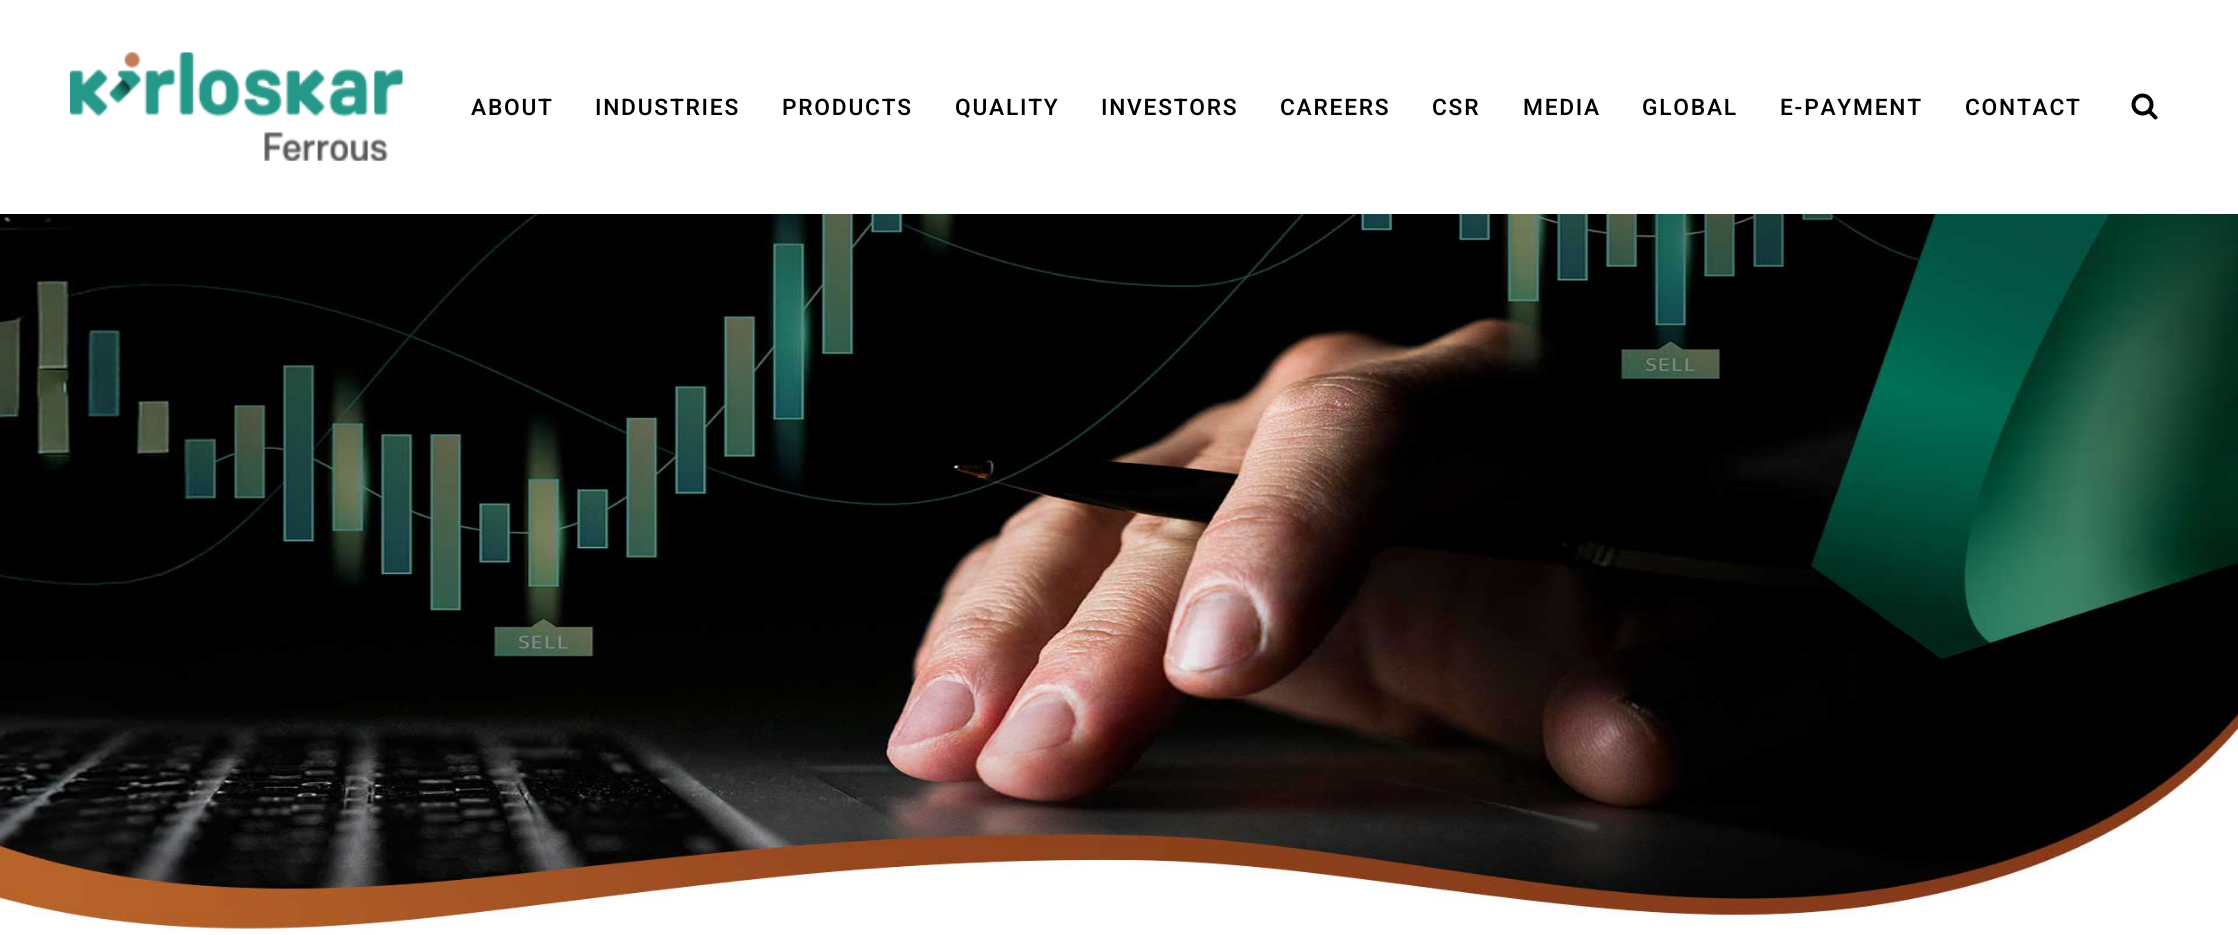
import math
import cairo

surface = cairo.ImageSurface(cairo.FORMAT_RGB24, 2238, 935)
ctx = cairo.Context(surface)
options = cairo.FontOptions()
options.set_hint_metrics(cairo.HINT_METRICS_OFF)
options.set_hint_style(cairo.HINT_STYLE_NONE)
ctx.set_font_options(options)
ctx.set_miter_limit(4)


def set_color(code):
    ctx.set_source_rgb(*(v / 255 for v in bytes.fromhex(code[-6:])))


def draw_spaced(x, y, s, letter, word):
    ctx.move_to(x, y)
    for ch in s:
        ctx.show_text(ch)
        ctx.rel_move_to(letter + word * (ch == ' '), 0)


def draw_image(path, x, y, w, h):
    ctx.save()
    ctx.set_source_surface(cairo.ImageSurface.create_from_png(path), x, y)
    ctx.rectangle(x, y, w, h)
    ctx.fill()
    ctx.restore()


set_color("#ffffff")
ctx.paint()
draw_image("assets/img1.png", 70, 52, 333, 109)
ctx.select_font_face("Heebo Medium")
ctx.set_font_size(22.75)
set_color("#000000")
draw_spaced(471, 115, "ABOUT", 1.75, 0)
draw_spaced(595, 115, "INDUSTRIES", 1.75, 0)
draw_spaced(782, 115, "PRODUCTS", 1.75, 0)
draw_spaced(955, 115, "QUALITY", 1.75, 0)
draw_spaced(1101, 115, "INVESTORS", 1.75, 0)
draw_spaced(1280, 115, "CAREERS", 1.75, 0)
draw_spaced(1432, 115, "CSR", 1.75, 0)
draw_spaced(1523, 115, "MEDIA", 1.75, 0)
draw_spaced(1642, 115, "GLOBAL", 1.75, 0)
draw_spaced(1780, 115, "E-PAYMENT", 1.75, 0)
draw_spaced(1965, 115, "CONTACT", 1.75, 0)
draw_image("assets/img2.png", 2131, 93, 27, 27)
draw_image("assets/img3.png", 0, 214, 2238, 716)
surface.write_to_png("output.png")
